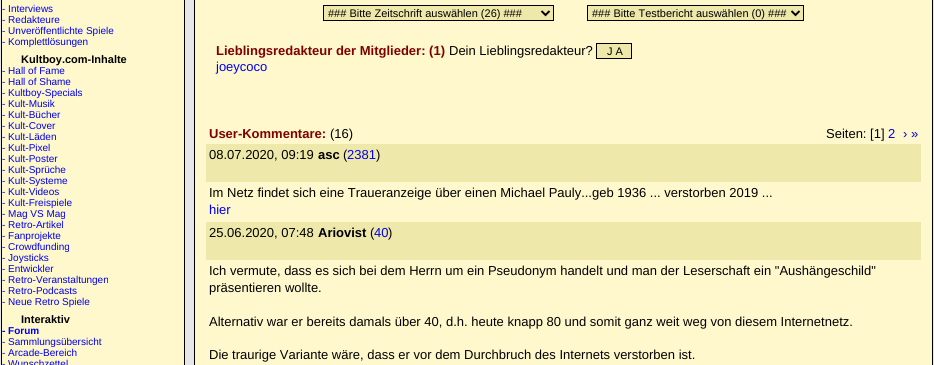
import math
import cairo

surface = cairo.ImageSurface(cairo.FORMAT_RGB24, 934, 365)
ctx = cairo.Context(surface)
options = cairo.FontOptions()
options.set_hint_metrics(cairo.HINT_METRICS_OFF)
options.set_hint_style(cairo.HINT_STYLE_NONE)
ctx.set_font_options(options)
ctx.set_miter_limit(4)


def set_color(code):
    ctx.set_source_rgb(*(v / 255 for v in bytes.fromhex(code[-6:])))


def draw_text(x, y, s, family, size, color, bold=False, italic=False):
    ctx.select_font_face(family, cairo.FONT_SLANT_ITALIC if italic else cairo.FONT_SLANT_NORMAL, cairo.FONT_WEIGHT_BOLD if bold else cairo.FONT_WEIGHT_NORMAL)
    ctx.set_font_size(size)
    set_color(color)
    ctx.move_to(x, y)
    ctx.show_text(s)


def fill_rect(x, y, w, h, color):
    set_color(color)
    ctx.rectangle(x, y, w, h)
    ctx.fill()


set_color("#e7e7e7")
ctx.paint()
set_color("#fef8cc")
ctx.rectangle(1.5, -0.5, 183, 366)
ctx.fill_preserve()
set_color("#000000")
ctx.set_line_width(1)
ctx.stroke()
draw_text(2, 12, "- Interviews", "Liberation Sans", 10, "#0000ee")
draw_text(2, 23, "- Redakteure", "Liberation Sans", 10, "#0000ee")
draw_text(2, 34, "- Unveröffentlichte Spiele", "Liberation Sans", 10, "#0000ee")
draw_text(2, 45, "- Komplettlösungen", "Liberation Sans", 10, "#0000ee")
draw_text(21, 63, "Kultboy.com-Inhalte", "Liberation Sans", 11, "#000000", bold=True)
draw_text(2, 74, "- Hall of Fame", "Liberation Sans", 10, "#0000ee")
draw_text(2, 85, "- Hall of Shame", "Liberation Sans", 10, "#0000ee")
draw_text(2, 96, "- Kultboy-Specials", "Liberation Sans", 10, "#0000ee")
draw_text(2, 107, "- Kult-Musik", "Liberation Sans", 10, "#0000ee")
draw_text(2, 118, "- Kult-Bücher", "Liberation Sans", 10, "#0000ee")
draw_text(2, 129, "- Kult-Cover", "Liberation Sans", 10, "#0000ee")
draw_text(2, 140, "- Kult-Läden", "Liberation Sans", 10, "#0000ee")
draw_text(2, 151, "- Kult-Pixel", "Liberation Sans", 10, "#0000ee")
draw_text(2, 162, "- Kult-Poster", "Liberation Sans", 10, "#0000ee")
draw_text(2, 173, "- Kult-Sprüche", "Liberation Sans", 10, "#0000ee")
draw_text(2, 184, "- Kult-Systeme", "Liberation Sans", 10, "#0000ee")
draw_text(2, 195, "- Kult-Videos", "Liberation Sans", 10, "#0000ee")
draw_text(2, 206, "- Kult-Freispiele", "Liberation Sans", 10, "#0000ee")
draw_text(2, 217, "- Mag VS Mag", "Liberation Sans", 10, "#0000ee")
draw_text(2, 228, "- Retro-Artikel", "Liberation Sans", 10, "#0000ee")
draw_text(2, 239, "- Fanprojekte", "Liberation Sans", 10, "#0000ee")
draw_text(2, 250, "- Crowdfunding", "Liberation Sans", 10, "#0000ee")
draw_text(2, 261, "- Joysticks", "Liberation Sans", 10, "#0000ee")
draw_text(2, 272, "- Entwickler", "Liberation Sans", 10, "#0000ee")
draw_text(2, 283, "- Retro-Veranstaltungen", "Liberation Sans", 10, "#0000ee")
draw_text(2, 294, "- Retro-Podcasts", "Liberation Sans", 10, "#0000ee")
draw_text(2, 305, "- Neue Retro Spiele", "Liberation Sans", 10, "#0000ee")
draw_text(21, 323, "Interaktiv", "Liberation Sans", 11, "#000000", bold=True)
draw_text(2, 334, "- Forum", "Liberation Sans", 10, "#0000ee", bold=True)
draw_text(2, 345, "- Sammlungsübersicht", "Liberation Sans", 10, "#0000ee")
draw_text(2, 356, "- Arcade-Bereich", "Liberation Sans", 10, "#0000ee")
draw_text(2, 367, "- Wunschzettel", "Liberation Sans", 10, "#0000ee")
ctx.rectangle(194.5, -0.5, 738, 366)
set_color("#000000")
ctx.stroke()
fill_rect(195, 0, 737, 365, "#fef8cc")
set_color("#eee8aa")
ctx.rectangle(323.5, 5.5, 230, 15)
ctx.fill_preserve()
set_color("#000000")
ctx.stroke()
ctx.new_path()
ctx.move_to(541.5, 11)
ctx.line_to(545.5, 15)
ctx.line_to(549.5, 11)
ctx.set_line_width(2)
ctx.stroke()
draw_text(328, 17, "### Bitte Zeitschrift auswählen (26) ###", "Liberation Sans", 11, "#000000")
set_color("#eee8aa")
ctx.rectangle(587.5, 5.5, 216, 15)
ctx.fill_preserve()
set_color("#000000")
ctx.set_line_width(1)
ctx.stroke()
ctx.new_path()
ctx.move_to(791.5, 11)
ctx.line_to(795.5, 15)
ctx.line_to(799.5, 11)
ctx.set_line_width(2)
ctx.stroke()
draw_text(592, 17, "### Bitte Testbericht auswählen (0) ###", "Liberation Sans", 11, "#000000")
draw_text(216, 55, "Lieblingsredakteur der Mitglieder: (1)", "Liberation Sans", 13, "#800000", bold=True)
draw_text(449, 55, "Dein Lieblingsredakteur?", "Liberation Sans", 13, "#000000")
set_color("#eee8aa")
ctx.rectangle(596.5, 43.5, 35, 15)
ctx.fill_preserve()
set_color("#000000")
ctx.set_line_width(1)
ctx.stroke()
draw_text(607, 55, "J A", "Liberation Sans", 11, "#000000")
draw_text(216, 71, "joeycoco", "Liberation Sans", 13, "#0000ee")
draw_text(209, 138, "User-Kommentare:", "Liberation Sans", 13, "#800000", bold=True)
draw_text(330, 138, "(16)", "Liberation Sans", 13, "#000000")
draw_text(826, 138, "Seiten: [1]", "Liberation Sans", 13, "#000000")
draw_text(888, 138, "2", "Liberation Sans", 13, "#0000ee")
draw_text(903, 138, "› »", "Liberation Sans", 13, "#0000ee")
fill_rect(206, 144, 715, 38, "#eee8aa")
draw_text(209, 159, "08.07.2020, 09:19", "Liberation Sans", 13, "#000000")
draw_text(318, 159, "asc", "Liberation Sans", 13, "#000000", bold=True)
draw_text(343, 159, "(", "Liberation Sans", 13, "#000000")
draw_text(347, 159, "2381", "Liberation Sans", 13, "#0000ee")
draw_text(376, 159, ")", "Liberation Sans", 13, "#000000")
draw_text(209, 197, "Im Netz findet sich eine Traueranzeige über einen Michael Pauly...geb 1936 ... verstorben 2019 ...", "Liberation Sans", 13, "#000000")
draw_text(209, 214, "hier", "Liberation Sans", 13, "#0000ee")
fill_rect(206, 222, 715, 38, "#eee8aa")
draw_text(209, 237, "25.06.2020, 07:48", "Liberation Sans", 13, "#000000")
draw_text(318, 237, "Ariovist", "Liberation Sans", 13, "#000000", bold=True)
draw_text(370, 237, "(", "Liberation Sans", 13, "#000000")
draw_text(374, 237, "40", "Liberation Sans", 13, "#0000ee")
draw_text(388, 237, ")", "Liberation Sans", 13, "#000000")
draw_text(209, 275, "Ich vermute, dass es sich bei dem Herrn um ein Pseudonym handelt und man der Leserschaft ein \"Aushängeschild\"", "Liberation Sans", 13, "#000000")
draw_text(209, 292, "präsentieren wollte.", "Liberation Sans", 13, "#000000")
draw_text(209, 326, "Alternativ war er bereits damals über 40, d.h. heute knapp 80 und somit ganz weit weg von diesem Internetnetz.", "Liberation Sans", 13, "#000000")
draw_text(209, 359, "Die traurige Variante wäre, dass er vor dem Durchbruch des Internets verstorben ist.", "Liberation Sans", 13, "#000000")
surface.write_to_png("output.png")
